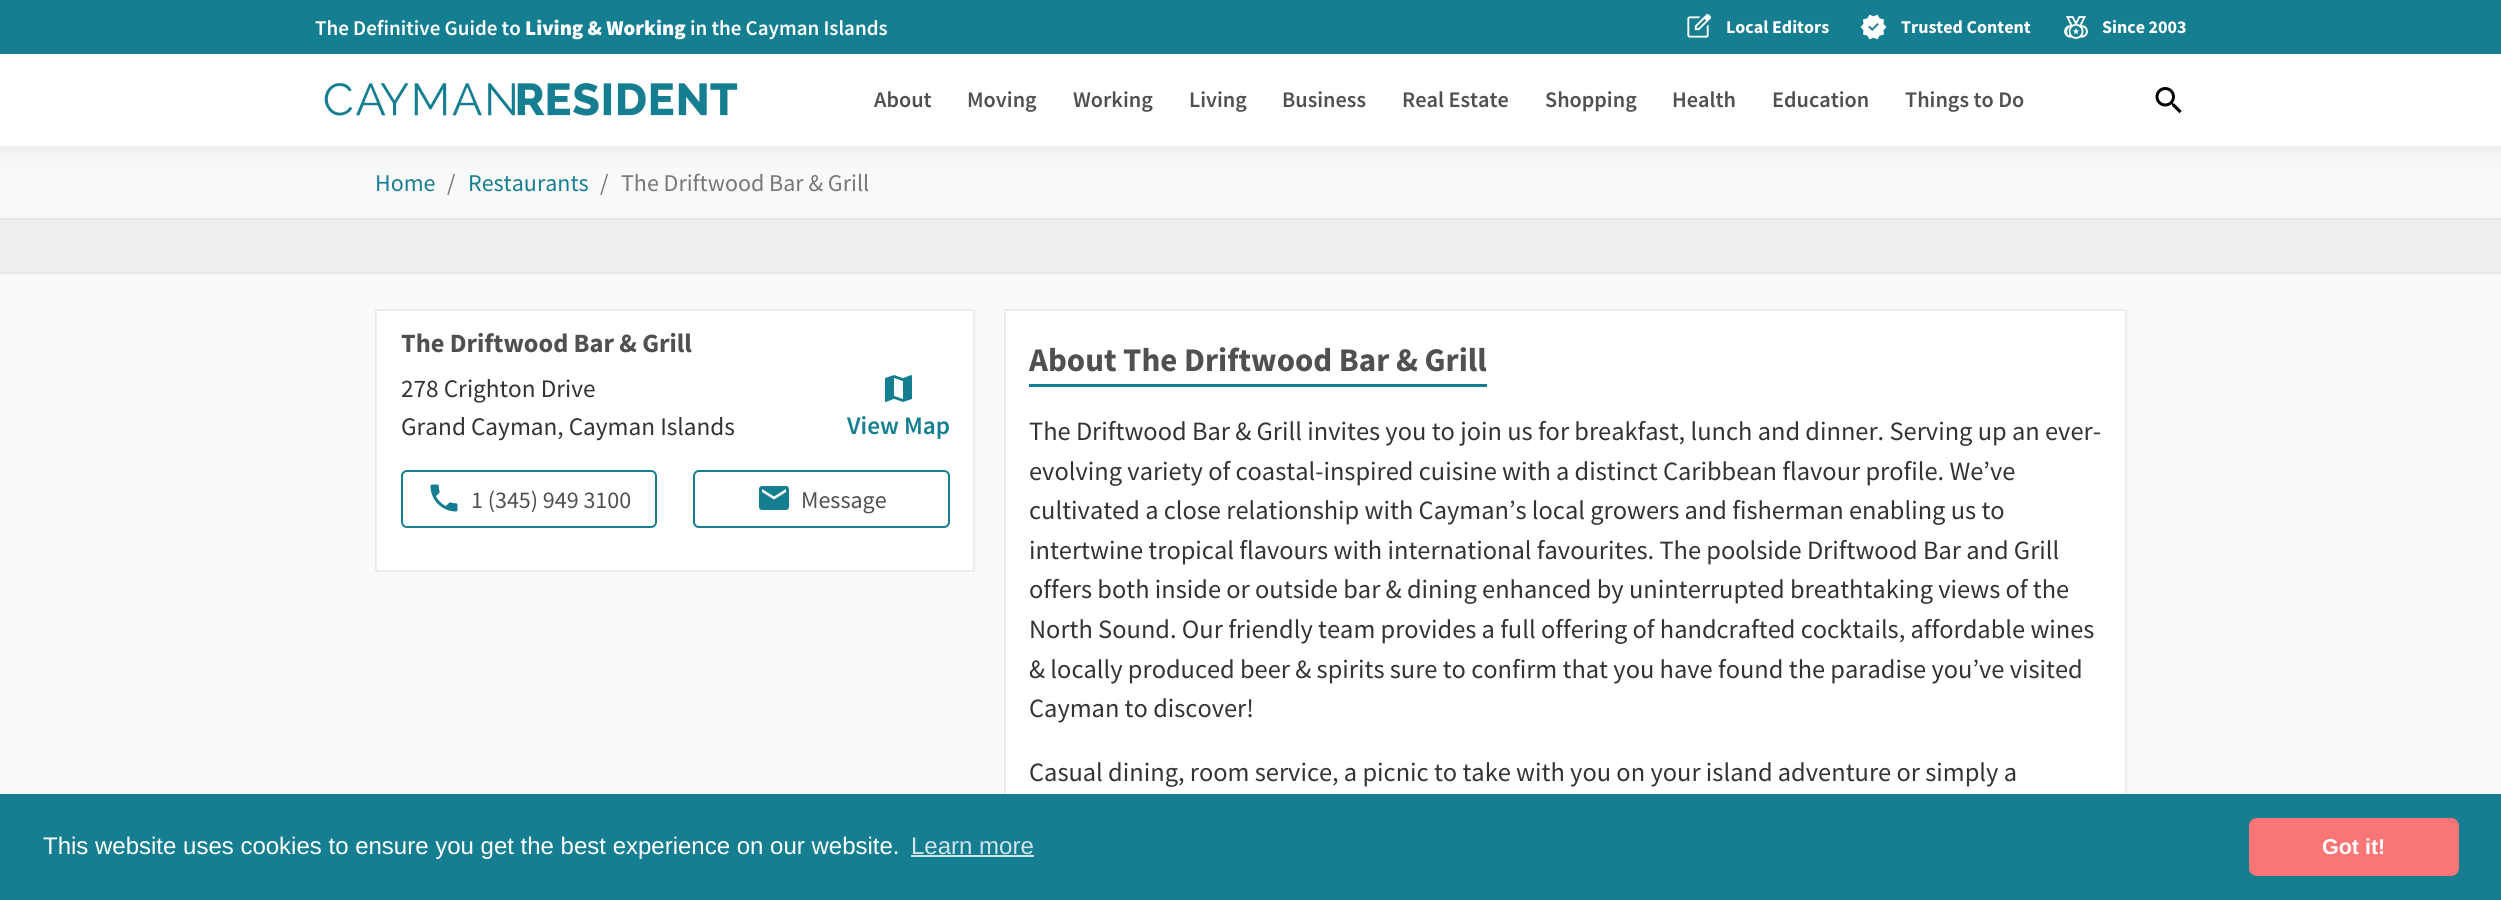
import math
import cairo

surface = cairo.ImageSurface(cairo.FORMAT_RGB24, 2501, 900)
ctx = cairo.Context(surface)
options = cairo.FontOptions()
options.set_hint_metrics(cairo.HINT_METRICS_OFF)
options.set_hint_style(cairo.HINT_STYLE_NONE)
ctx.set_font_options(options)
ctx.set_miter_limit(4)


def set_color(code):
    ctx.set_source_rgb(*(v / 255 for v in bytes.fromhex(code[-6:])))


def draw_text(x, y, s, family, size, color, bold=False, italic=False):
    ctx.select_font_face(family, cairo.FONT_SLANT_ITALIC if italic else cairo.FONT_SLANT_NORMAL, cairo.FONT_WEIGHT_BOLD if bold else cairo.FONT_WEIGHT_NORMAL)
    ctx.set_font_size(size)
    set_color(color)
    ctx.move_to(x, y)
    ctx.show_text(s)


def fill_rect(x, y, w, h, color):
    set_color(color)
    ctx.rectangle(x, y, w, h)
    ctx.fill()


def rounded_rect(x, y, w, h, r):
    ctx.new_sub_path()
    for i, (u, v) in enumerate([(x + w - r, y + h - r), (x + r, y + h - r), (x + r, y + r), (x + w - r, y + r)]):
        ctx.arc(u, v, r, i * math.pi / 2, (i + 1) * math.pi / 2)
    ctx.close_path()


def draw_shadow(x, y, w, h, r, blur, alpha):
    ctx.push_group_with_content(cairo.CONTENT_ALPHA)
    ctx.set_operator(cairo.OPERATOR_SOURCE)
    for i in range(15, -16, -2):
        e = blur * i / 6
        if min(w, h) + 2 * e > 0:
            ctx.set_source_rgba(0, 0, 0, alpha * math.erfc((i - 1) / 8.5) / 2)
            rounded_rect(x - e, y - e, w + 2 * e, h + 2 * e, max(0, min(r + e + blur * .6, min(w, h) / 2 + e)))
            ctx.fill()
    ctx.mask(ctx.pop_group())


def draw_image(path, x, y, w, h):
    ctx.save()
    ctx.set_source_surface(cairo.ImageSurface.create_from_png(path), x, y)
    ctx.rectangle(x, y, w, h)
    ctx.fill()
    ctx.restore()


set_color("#f9f9f9")
ctx.paint()
set_color("#000000")
draw_shadow(0, 2, 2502, 145, 0, 10.5, 0.1)
fill_rect(0, 0, 2501, 54, "#157e91")
draw_text(315, 35, "The Definitive Guide to", "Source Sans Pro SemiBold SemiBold", 21, "#ffffff")
draw_text(525, 35, "Living & Working", "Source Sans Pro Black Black", 21, "#ffffff")
draw_text(690, 35, "in the Cayman Islands", "Source Sans Pro SemiBold SemiBold", 21, "#ffffff")
draw_image("assets/img1.png", 1687, 14, 24, 24)
draw_text(1726, 33, "Local Editors", "Source Sans Pro", 18, "#ffffff", bold=True)
draw_image("assets/img2.png", 1860, 14, 27, 26)
draw_text(1901, 33, "Trusted Content", "Source Sans Pro", 18, "#ffffff", bold=True)
draw_image("assets/img3.png", 2064, 16, 24, 23)
draw_text(2102, 33, "Since 2003", "Source Sans Pro", 18, "#ffffff", bold=True)
fill_rect(0, 54, 2501, 92, "#ffffff")
draw_image("assets/img4.png", 324, 83, 414, 33)
draw_text(874, 107, "About", "Source Sans Pro SemiBold SemiBold", 22.25, "#505050")
draw_text(967, 107, "Moving", "Source Sans Pro SemiBold SemiBold", 22.25, "#505050")
draw_text(1073, 107, "Working", "Source Sans Pro SemiBold SemiBold", 22.25, "#505050")
draw_text(1189, 107, "Living", "Source Sans Pro SemiBold SemiBold", 22.25, "#505050")
draw_text(1282, 107, "Business", "Source Sans Pro SemiBold SemiBold", 22.25, "#505050")
draw_text(1402, 107, "Real Estate", "Source Sans Pro SemiBold SemiBold", 22.25, "#505050")
draw_text(1545, 107, "Shopping", "Source Sans Pro SemiBold SemiBold", 22.25, "#505050")
draw_text(1672, 107, "Health", "Source Sans Pro SemiBold SemiBold", 22.25, "#505050")
draw_text(1772, 107, "Education", "Source Sans Pro SemiBold SemiBold", 22.25, "#505050")
draw_text(1905, 107, "Things to Do", "Source Sans Pro SemiBold SemiBold", 22.25, "#505050")
draw_image("assets/img5.png", 2155, 87, 27, 27)
draw_text(375, 191, "Home", "Source Sans Pro", 24, "#157e91")
draw_text(447, 191, "/", "Source Sans Pro", 24, "#6c757d")
draw_text(468, 191, "Restaurants", "Source Sans Pro", 24, "#157e91")
draw_text(600, 191, "/", "Source Sans Pro", 24, "#6c757d")
draw_text(621, 191, "The Driftwood Bar & Grill", "Source Sans Pro", 24, "#777777")
fill_rect(0, 220, 2501, 52, "#efefef")
fill_rect(0, 218, 2501, 2, "#e7e7e8")
fill_rect(0, 272, 2501, 2, "#e7e7e8")
set_color("#ffffff")
ctx.rectangle(376, 310, 598, 261)
ctx.fill_preserve()
set_color("#eaecef")
ctx.stroke()
draw_text(401, 352, "The Driftwood Bar & Grill", "Source Sans Pro", 26.4, "#505050", bold=True)
draw_text(401, 397, "278 Crighton Drive", "Source Sans Pro", 25.25, "#333333")
draw_text(401, 435, "Grand Cayman, Cayman Islands", "Source Sans Pro", 25.25, "#333333")
draw_image("assets/img6.png", 885, 375, 27, 27)
draw_text(847, 434, "View Map", "Source Sans Pro SemiBold SemiBold", 25.25, "#157e91")
rounded_rect(402, 471, 254, 56, 5)
ctx.stroke()
draw_image("assets/img7.png", 430, 484, 28, 28)
draw_text(471, 508, "1 (345) 949 3100", "Source Sans Pro", 24, "#505050")
rounded_rect(694, 471, 255, 56, 5)
set_color("#157e91")
ctx.stroke()
draw_image("assets/img8.png", 759, 486, 30, 24)
draw_text(801, 508, "Message", "Source Sans Pro", 24, "#505050")
fill_rect(1006, 311, 1119, 483, "#ffffff")
ctx.rectangle(1005, 310, 1121, 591)
set_color("#eaecef")
ctx.stroke()
fill_rect(1029, 384, 458, 3, "#157e91")
draw_text(1029, 371, "About The Driftwood Bar & Grill", "Source Sans Pro", 33, "#505050", bold=True)
draw_text(1029, 440, "The Driftwood Bar & Grill invites you to join us for breakfast, lunch and dinner. Serving up an ever-", "Source Sans Pro", 26.4, "#333333")
draw_text(1029, 480, "evolving variety of coastal-inspired cuisine with a distinct Caribbean flavour profile. We’ve", "Source Sans Pro", 26.4, "#333333")
draw_text(1029, 519, "cultivated a close relationship with Cayman’s local growers and fisherman enabling us to", "Source Sans Pro", 26.4, "#333333")
draw_text(1029, 559, "intertwine tropical flavours with international favourites. The poolside Driftwood Bar and Grill", "Source Sans Pro", 26.4, "#333333")
draw_text(1029, 598, "offers both inside or outside bar & dining enhanced by uninterrupted breathtaking views of the", "Source Sans Pro", 26.4, "#333333")
draw_text(1029, 638, "North Sound. Our friendly team provides a full offering of handcrafted cocktails, affordable wines", "Source Sans Pro", 26.4, "#333333")
draw_text(1029, 678, "& locally produced beer & spirits sure to confirm that you have found the paradise you’ve visited", "Source Sans Pro", 26.4, "#333333")
draw_text(1029, 717, "Cayman to discover!", "Source Sans Pro", 26.4, "#333333")
draw_text(1029, 781, "Casual dining, room service, a picnic to take with you on your island adventure or simply a", "Source Sans Pro", 26.4, "#333333")
fill_rect(0, 794, 2501, 106, "#157e91")
draw_text(43, 854, "This website uses cookies to ensure you get the best experience on our website.", "Liberation Sans", 24, "#ffffff")
draw_text(911, 854, "Learn more", "Liberation Sans", 24, "#d0e5e9")
fill_rect(911, 855, 123, 2, "#d0e5e9")
set_color("#fa7676")
rounded_rect(2249, 818, 210, 58, 8)
ctx.fill()
draw_text(2322, 854, "Got it!", "Liberation Sans", 21.5, "#ffffff", bold=True)
surface.write_to_png("output.png")
